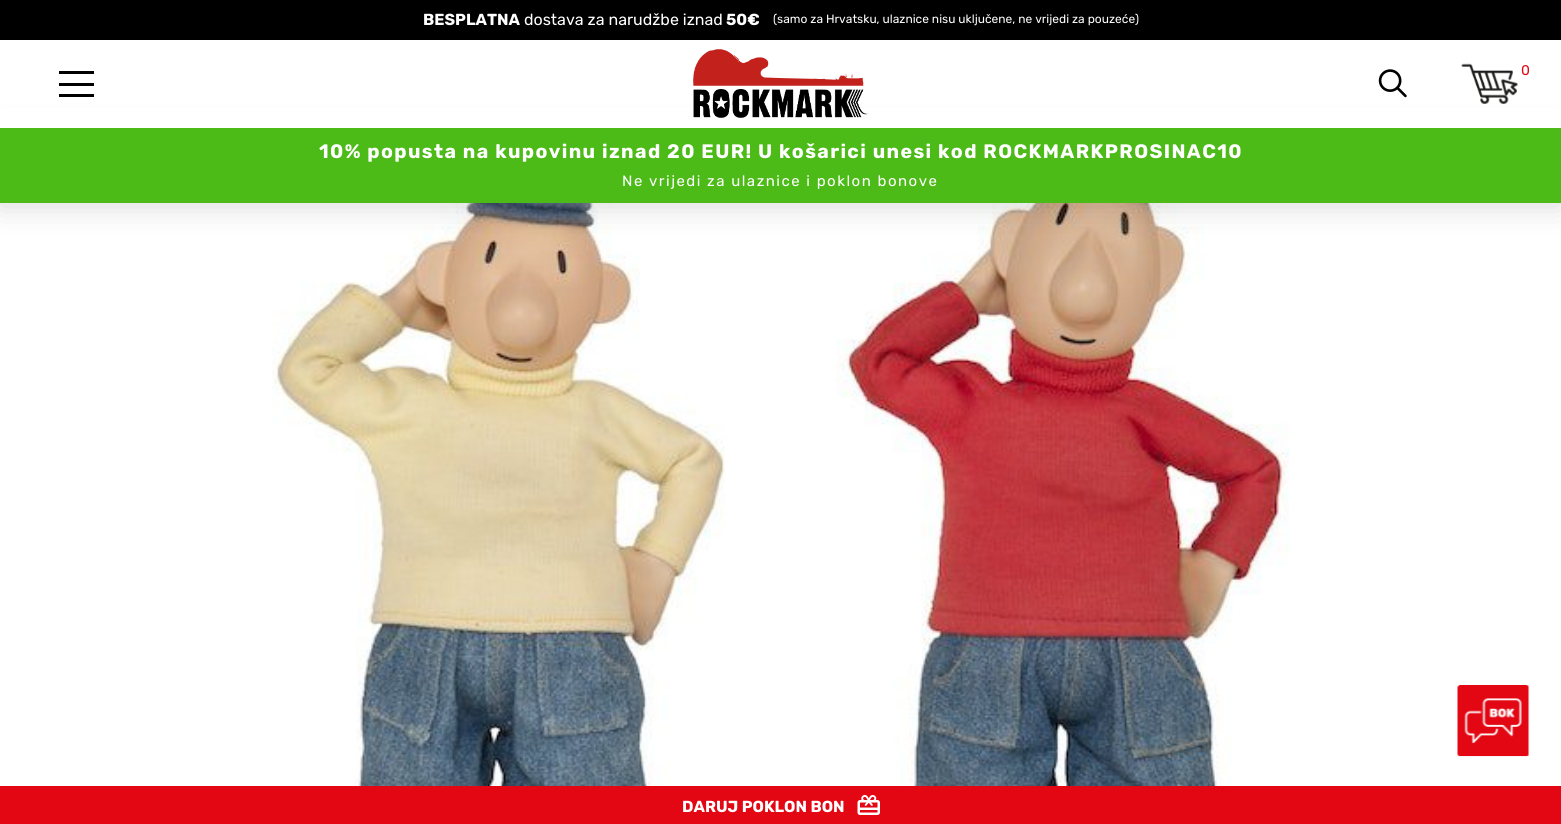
import math
import cairo

surface = cairo.ImageSurface(cairo.FORMAT_RGB24, 1561, 824)
ctx = cairo.Context(surface)
options = cairo.FontOptions()
options.set_hint_metrics(cairo.HINT_METRICS_OFF)
options.set_hint_style(cairo.HINT_STYLE_NONE)
ctx.set_font_options(options)
ctx.set_miter_limit(4)


def set_color(code):
    ctx.set_source_rgb(*(v / 255 for v in bytes.fromhex(code[-6:])))


def draw_text(x, y, s, family, size, color, bold=False, italic=False):
    ctx.select_font_face(family, cairo.FONT_SLANT_ITALIC if italic else cairo.FONT_SLANT_NORMAL, cairo.FONT_WEIGHT_BOLD if bold else cairo.FONT_WEIGHT_NORMAL)
    ctx.set_font_size(size)
    set_color(color)
    ctx.move_to(x, y)
    ctx.show_text(s)


def draw_spaced(x, y, s, letter, word):
    ctx.move_to(x, y)
    for ch in s:
        ctx.show_text(ch)
        ctx.rel_move_to(letter + word * (ch == ' '), 0)


def fill_rect(x, y, w, h, color):
    set_color(color)
    ctx.rectangle(x, y, w, h)
    ctx.fill()


def rounded_rect(x, y, w, h, r):
    ctx.new_sub_path()
    for i, (u, v) in enumerate([(x + w - r, y + h - r), (x + r, y + h - r), (x + r, y + r), (x + w - r, y + r)]):
        ctx.arc(u, v, r, i * math.pi / 2, (i + 1) * math.pi / 2)
    ctx.close_path()


def draw_shadow(x, y, w, h, r, blur, alpha):
    ctx.push_group_with_content(cairo.CONTENT_ALPHA)
    ctx.set_operator(cairo.OPERATOR_SOURCE)
    for i in range(15, -16, -2):
        e = blur * i / 6
        if min(w, h) + 2 * e > 0:
            ctx.set_source_rgba(0, 0, 0, alpha * math.erfc((i - 1) / 8.5) / 2)
            rounded_rect(x - e, y - e, w + 2 * e, h + 2 * e, max(0, min(r + e + blur * .6, min(w, h) / 2 + e)))
            ctx.fill()
    ctx.mask(ctx.pop_group())


def draw_image(path, x, y, w, h):
    ctx.save()
    ctx.set_source_surface(cairo.ImageSurface.create_from_png(path), x, y)
    ctx.rectangle(x, y, w, h)
    ctx.fill()
    ctx.restore()


set_color("#ffffff")
ctx.paint()
fill_rect(0, 0, 1561, 40, "#000000")
draw_text(423, 25, "BESPLATNA", "Rubik Light", 16, "#ffffff")
draw_text(524, 25, "dostava za narudžbe iznad", "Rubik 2 Light", 16, "#ffffff")
draw_text(726, 25, "50€", "Rubik Light", 16, "#ffffff")
draw_text(773, 23, "(samo za Hrvatsku, ulaznice nisu uključene, ne vrijedi za pouzeće)", "Rubik 2 Light", 12, "#ffffff")
draw_image("assets/img5.png", 272, 203, 1018, 583)
set_color("#000000")
draw_shadow(0, 131, 1561, 75, 0, 15.5, 0.15)
fill_rect(0, 108, 1561, 20, "#ffffff")
fill_rect(59, 71, 35, 3, "#000000")
fill_rect(59, 83, 35, 3, "#000000")
fill_rect(59, 94, 35, 3, "#000000")
draw_image("assets/img1.png", 693, 49, 175, 69)
draw_image("assets/img2.png", 1378, 69, 29, 29)
draw_image("assets/img3.png", 1461, 63, 57, 41)
draw_text(1521, 75, "0", "Rubik 2 Light", 14, "#e30613")
fill_rect(0, 128, 1561, 75, "#4cbb17")
ctx.select_font_face("Rubik Light")
ctx.set_font_size(19.5)
set_color("#ffffff")
draw_spaced(319, 158, "10% popusta na kupovinu iznad 20 EUR! U košarici unesi kod ROCKMARKPROSINAC10", 1.37, 0)
ctx.select_font_face("Rubik 2 Light")
ctx.set_font_size(15)
draw_spaced(622, 186, "Ne vrijedi za ulaznice i poklon bonove", 1.5, 0)
fill_rect(0, 786, 1561, 38, "#e30613")
draw_text(682, 812, "DARUJ POKLON BON", "Rubik Light", 16, "#ffffff")
draw_image("assets/img4.png", 857, 795, 23, 20)
draw_image("assets/img6.png", 1457, 685, 73, 72)
surface.write_to_png("output.png")
